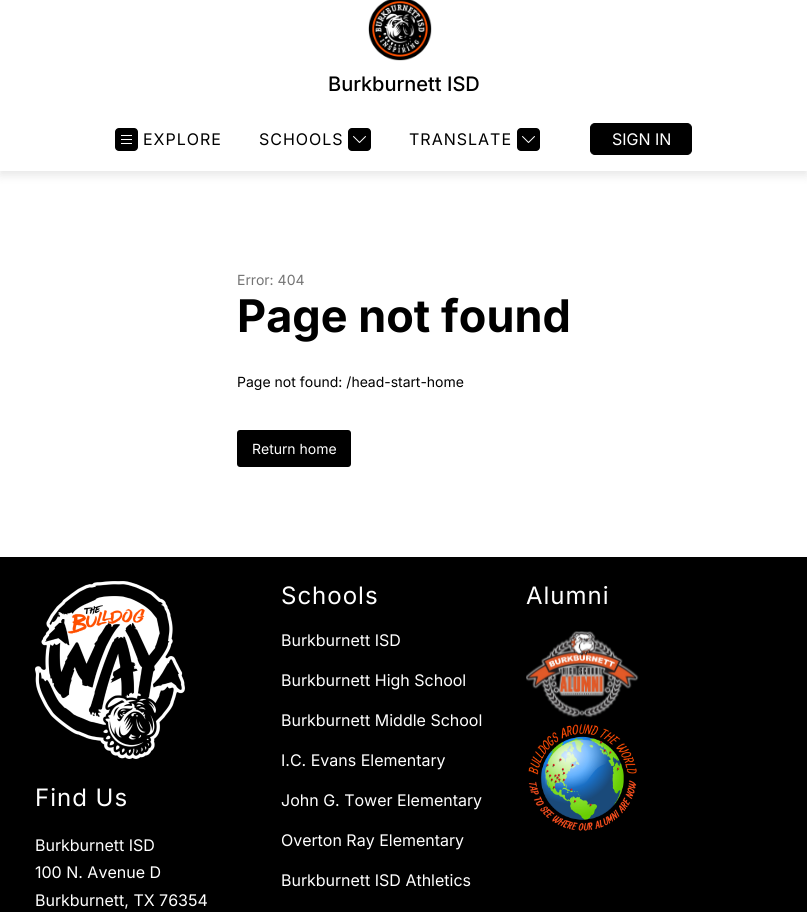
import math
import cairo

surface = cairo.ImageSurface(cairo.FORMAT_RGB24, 807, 912)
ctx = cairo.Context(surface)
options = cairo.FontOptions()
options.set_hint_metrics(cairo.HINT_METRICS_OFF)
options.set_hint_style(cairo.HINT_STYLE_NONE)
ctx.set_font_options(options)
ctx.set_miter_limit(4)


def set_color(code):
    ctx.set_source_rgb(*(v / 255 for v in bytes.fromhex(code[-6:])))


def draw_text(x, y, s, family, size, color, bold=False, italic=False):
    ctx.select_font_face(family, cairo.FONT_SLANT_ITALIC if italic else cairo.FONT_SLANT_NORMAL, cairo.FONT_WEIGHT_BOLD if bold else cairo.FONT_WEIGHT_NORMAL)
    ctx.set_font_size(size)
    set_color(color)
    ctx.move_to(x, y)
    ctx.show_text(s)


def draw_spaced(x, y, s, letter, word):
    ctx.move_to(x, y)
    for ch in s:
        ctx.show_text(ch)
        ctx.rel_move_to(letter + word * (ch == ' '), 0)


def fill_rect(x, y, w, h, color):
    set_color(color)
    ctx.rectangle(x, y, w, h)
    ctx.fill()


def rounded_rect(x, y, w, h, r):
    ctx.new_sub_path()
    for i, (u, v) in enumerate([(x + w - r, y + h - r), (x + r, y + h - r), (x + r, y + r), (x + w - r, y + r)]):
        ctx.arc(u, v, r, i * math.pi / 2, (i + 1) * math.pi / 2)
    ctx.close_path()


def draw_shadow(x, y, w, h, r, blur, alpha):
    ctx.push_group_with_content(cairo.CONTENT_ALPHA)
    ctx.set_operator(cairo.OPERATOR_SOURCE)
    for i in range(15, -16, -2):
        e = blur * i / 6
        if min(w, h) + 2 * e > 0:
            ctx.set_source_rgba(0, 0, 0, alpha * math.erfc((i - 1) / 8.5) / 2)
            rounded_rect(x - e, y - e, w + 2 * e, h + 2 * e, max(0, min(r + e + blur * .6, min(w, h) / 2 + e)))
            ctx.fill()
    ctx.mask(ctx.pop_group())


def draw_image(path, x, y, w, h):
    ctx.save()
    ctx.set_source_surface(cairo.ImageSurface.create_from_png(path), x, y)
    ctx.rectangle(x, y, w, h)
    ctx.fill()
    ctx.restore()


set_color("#ffffff")
ctx.paint()
set_color("#000000")
draw_shadow(0, -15, 807, 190, 0, 5, 0.1)
fill_rect(0, 0, 807, 171, "#ffffff")
draw_image("assets/img1.png", 368, 0, 64, 61)
draw_text(328, 91, "Burkburnett ISD", "Inter Medium", 20, "#000000")
draw_image("assets/img2.png", 115, 128, 23, 23)
ctx.select_font_face("Inter")
ctx.set_font_size(16)
draw_spaced(143, 145, "EXPLORE", 1, 0)
draw_spaced(259, 145, "SCHOOLS", 1, 0)
draw_image("assets/img3.png", 348, 128, 23, 23)
draw_spaced(409, 145, "TRANSLATE", 1, 0)
draw_image("assets/img3.png", 517, 128, 23, 23)
rounded_rect(590.5, 123.5, 101, 31, 4.5)
ctx.fill_preserve()
ctx.set_line_width(1)
ctx.stroke()
draw_text(612, 145, "SIGN IN", "Inter", 16, "#ffffff")
draw_text(237, 285, "Error: 404", "Inter", 14, "#747474")
draw_text(237, 332, "Page not found", "Inter", 45, "#000000", bold=True)
draw_text(237, 387, "Page not found: /head-start-home", "Inter", 14, "#000000")
rounded_rect(237, 430, 114, 37, 3)
ctx.fill()
draw_text(252, 454, "Return home", "Inter", 14, "#ffffff")
fill_rect(0, 557, 807, 355, "#000000")
ctx.set_font_size(24)
set_color("#ffffff")
draw_spaced(281, 604, "Schools", 1, 0)
draw_text(281, 646, "Burkburnett ISD", "Inter", 16, "#ffffff")
draw_text(281, 686, "Burkburnett High School", "Inter", 16, "#ffffff")
draw_text(281, 726, "Burkburnett Middle School", "Inter", 16, "#ffffff")
draw_text(281, 766, "I.C. Evans Elementary", "Inter", 16, "#ffffff")
draw_text(281, 806, "John G. Tower Elementary", "Inter", 16, "#ffffff")
draw_text(281, 846, "Overton Ray Elementary", "Inter", 16, "#ffffff")
draw_text(281, 886, "Burkburnett ISD Athletics", "Inter", 16, "#ffffff")
ctx.set_font_size(24)
draw_spaced(526, 604, "Alumni", 1, 0)
draw_image("assets/img4.png", 526, 631, 113, 87)
draw_image("assets/img5.png", 528, 724, 109, 107)
draw_image("assets/img6.png", 35, 581, 150, 178)
draw_spaced(35, 806, "Find Us", 1, 0)
draw_text(35, 851, "Burkburnett ISD", "Inter", 16, "#ffffff")
draw_text(35, 878, "100 N. Avenue D", "Inter", 16, "#ffffff")
draw_text(35, 906, "Burkburnett, TX 76354", "Inter", 16, "#ffffff")
surface.write_to_png("output.png")
